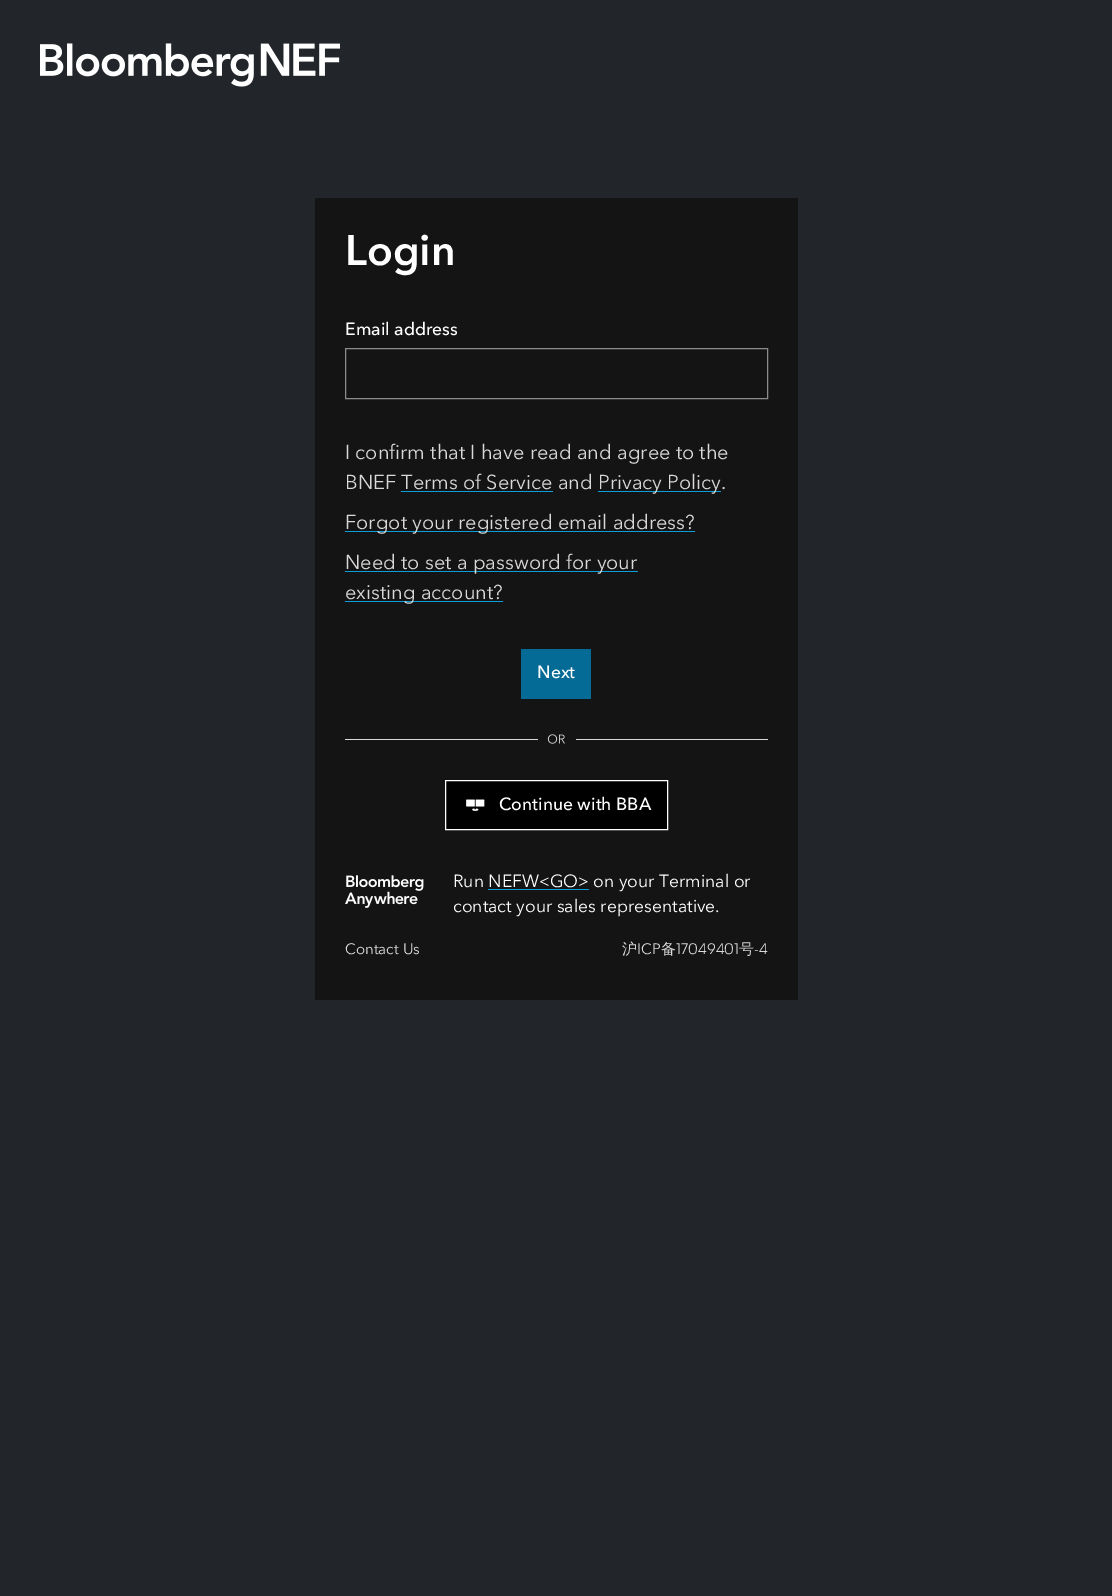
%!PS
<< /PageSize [1112 1596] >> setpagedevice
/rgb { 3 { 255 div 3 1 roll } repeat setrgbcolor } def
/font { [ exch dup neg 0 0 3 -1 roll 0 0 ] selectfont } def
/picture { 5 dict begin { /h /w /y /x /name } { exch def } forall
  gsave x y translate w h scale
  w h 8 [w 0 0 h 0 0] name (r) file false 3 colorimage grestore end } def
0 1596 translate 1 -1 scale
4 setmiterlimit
34 38 42 rgb
0 0 1112 1596 rectfill
(img/1.rgb) 40 43 300 44 picture
20 20 20 rgb
315 198 483 802 rectfill
140 140 140 rgb
345.5 348.5 422 50 rectstroke
[
  [598 491 123 1 13 157 219]
  [401 491 152 1 13 157 219]
  [345 531 350 1 13 157 219]
  [345 571 293 1 13 157 219]
  [345 601 158 1 13 157 219]
  [521 649 70 50 4 106 150]
  [345 739 423 1 217 217 217]
  [538 739 38 1 20 20 20]
] { aload pop rgb rectfill } forall
(img/2.rgb) 547 734 18 10 picture
0 0 0 rgb
445.5 780.5 moveto 667.5 780.5 lineto 667.5 829.5 lineto 445.5 829.5 lineto closepath gsave fill grestore
255 255 255 rgb
stroke
(img/3.rgb) 466 799 19 12 picture
(img/4.rgb) 345 875 79 33 picture
/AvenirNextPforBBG-SemiBold 42.5 font
345 265 moveto (Login) show
/AvenirNextPforBBG-Medium 17.5 font
345 335 moveto (Email address) show
/AvenirNextPforBBG-Regular 20 font
217 217 217 rgb
[
  [(I confirm that I have read and agree to the) 345 459]
  [(BNEF Terms of Service and) 345 489]
  [(Privacy Policy.) 598 489]
  [(Forgot your registered email address?) 345 529]
  [(Need to set a password for your) 345 569]
  [(existing account?) 345 599]
] { aload pop moveto show } forall
/AvenirNextPforBBG-Medium 17.5 font
255 255 255 rgb
537 678 moveto (Next) show
499 810 moveto (Continue with BBA) show
/AvenirNextPforBBG-Regular 17.5 font
453 887 moveto (Run NEFW<GO> on your Terminal or) show
13 157 219 rgb
488 889 101 1 rectfill
255 255 255 rgb
453 912 moveto (contact your sales representative.) show
/AvenirNextPforBBG-Regular 15 font
217 217 217 rgb
345 954 moveto (Contact Us) show
/WenQuanYiZenHei-Medium 15 font
622 954 moveto (沪) show
/AvenirNextPforBBG-Regular 15 font
637 954 moveto (ICP) show
/WenQuanYiZenHei-Medium 15 font
661 954 moveto (备) show
/AvenirNextPforBBG-Regular 15 font
676 954 moveto (17049401) show
/WenQuanYiZenHei-Medium 15 font
739 954 moveto (号) show
/AvenirNextPforBBG-Regular 15 font
754 954 moveto (-4) show
showpage
